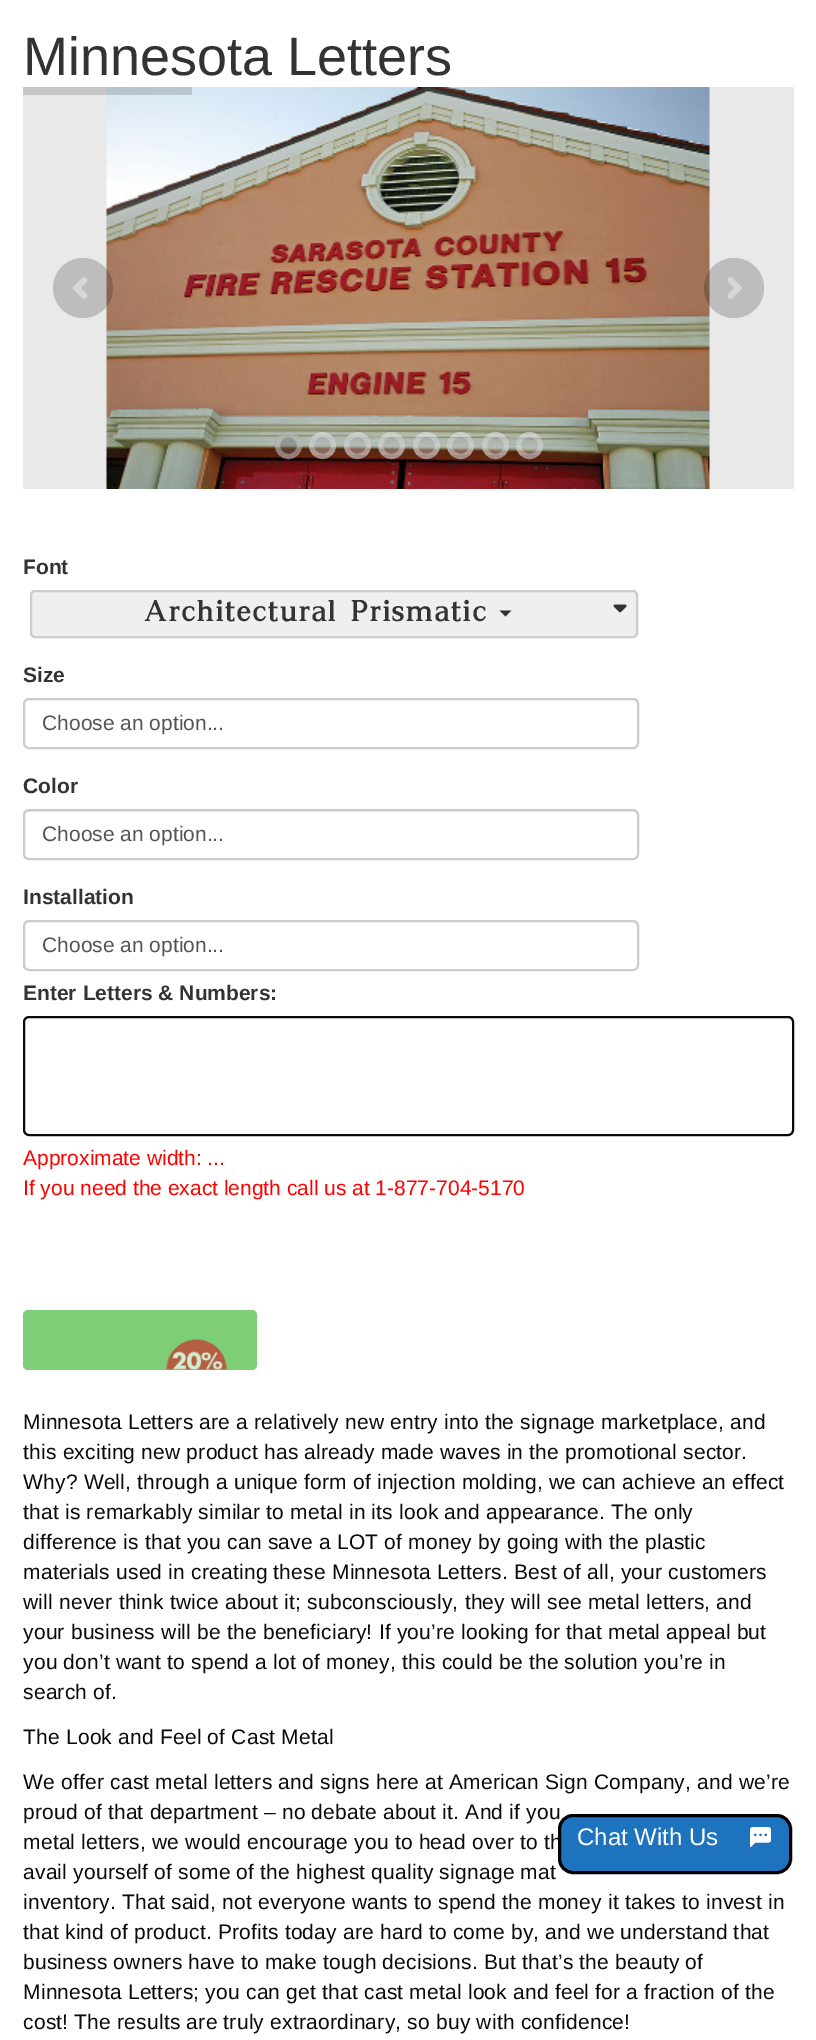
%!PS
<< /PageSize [816 2040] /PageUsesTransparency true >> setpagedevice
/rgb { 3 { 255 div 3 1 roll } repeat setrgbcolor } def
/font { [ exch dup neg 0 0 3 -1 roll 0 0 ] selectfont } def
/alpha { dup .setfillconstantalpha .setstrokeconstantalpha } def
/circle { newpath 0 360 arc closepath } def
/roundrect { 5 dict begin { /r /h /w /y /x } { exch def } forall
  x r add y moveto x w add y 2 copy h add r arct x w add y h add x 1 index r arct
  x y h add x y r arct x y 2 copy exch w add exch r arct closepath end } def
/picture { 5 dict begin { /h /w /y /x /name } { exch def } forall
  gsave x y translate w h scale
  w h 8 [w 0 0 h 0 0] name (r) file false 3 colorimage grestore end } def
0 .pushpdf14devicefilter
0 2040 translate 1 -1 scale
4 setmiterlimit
255 255 255 rgb
0 0 816 2040 rectfill
233 233 233 rgb
23 87 771 402 rectfill
(img/2.rgb) 106 87 604 402 picture
0.15 alpha
0 0 0 rgb
23 87 169 8 rectfill
0.19 alpha
83 288 30 circle fill
1 alpha
(img/1.rgb) 72 277 16 22 picture
0.19 alpha
734 288 30 circle fill
1 alpha
(img/3.rgb) 727 277 16 22 picture
0.39 alpha
102 102 102 rgb
288.5 445.5 13.5 circle fill
229 229 229 rgb
5 setlinewidth
288.5 445.5 11 circle stroke
322.5 445.5 11 circle stroke
357.5 445.5 11 circle stroke
391.5 445.5 11 circle stroke
426.5 445.5 11 circle stroke
460.5 445.5 11 circle stroke
495.5 445.5 11 circle stroke
529.5 445.5 11 circle stroke
1 alpha
239 239 239 rgb
31 591 606 46 4 roundrect gsave fill grestore
204 204 204 rgb
2 setlinewidth
stroke
51 51 51 rgb
499.5 610.5 moveto 511.5 610.5 lineto 505.5 616.5 lineto closepath fill
(img/4.rgb) 613 604 14 9 picture
236 236 236 rgb
28 700 moveto 633 700 lineto 635 700 638 703 638 705 curveto 638 704 lineto 638 701 636 699 633 699 curveto 29 699 lineto 26 699 24 701 24 704 curveto 24 705 lineto 24 703 26 700 28 700 curveto closepath fill
204 204 204 rgb
24 699 614 49 5 roundrect stroke
236 236 236 rgb
28 812 moveto 633 812 lineto 635 812 638 814 638 816 curveto 638 815 lineto 638 812 636 810 633 810 curveto 29 810 lineto 26 810 24 812 24 815 curveto 24 816 lineto 24 814 26 812 28 812 curveto closepath fill
204 204 204 rgb
24 810 614 49 5 roundrect stroke
236 236 236 rgb
28 922 moveto 633 922 lineto 635 922 638 925 638 927 curveto 638 926 lineto 638 923 636 921 633 921 curveto 29 921 lineto 26 921 24 923 24 926 curveto 24 927 lineto 24 925 26 922 28 922 curveto closepath fill
204 204 204 rgb
24 921 614 49 5 roundrect stroke
10 10 10 rgb
24 1017 769 118 5 roundrect stroke
126 206 119 rgb
23 1310 234 60 5 roundrect fill
(img/5.rgb) 166 1339 61 31 picture
/LiberationSans-Regular 54 font
51 51 51 rgb
23 75 moveto (Minnesota Letters) show
/LiberationSans-Bold 21 font
23 574 moveto (Font) show
/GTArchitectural-Regular 21 font
143 621 moveto (Architectural Prismatic) show
/LiberationSans-Bold 21 font
23 682 moveto (Size) show
/LiberationSans-Regular 21 font
85 85 85 rgb
42 730 moveto (Choose an option...) show
/LiberationSans-Bold 21 font
51 51 51 rgb
23 793 moveto (Color) show
/LiberationSans-Regular 21 font
85 85 85 rgb
42 841 moveto (Choose an option...) show
/LiberationSans-Bold 21 font
51 51 51 rgb
23 904 moveto (Installation) show
/LiberationSans-Regular 21 font
85 85 85 rgb
42 952 moveto (Choose an option...) show
/LiberationSans-Bold 21 font
51 51 51 rgb
23 1000 moveto (Enter Letters & Numbers:) show
/LiberationSans-Regular 21 font
255 0 0 rgb
23 1165 moveto (Approximate width: ...) show
23 1195 moveto (If you need the exact length call us at 1-877-704-5170) show
10 10 10 rgb
23 1429 moveto 0.2 0 (Minnesota Letters are a relatively new entry into the signage marketplace, and) ashow
23 1459 moveto 0.2 0 (this exciting new product has already made waves in the promotional sector.) ashow
23 1489 moveto 0.2 0 (Why? Well, through a unique form of injection molding, we can achieve an effect) ashow
23 1519 moveto 0.2 0 (that is remarkably similar to metal in its look and appearance. The only) ashow
23 1549 moveto 0.2 0 (difference is that you can save a LOT of money by going with the plastic) ashow
23 1579 moveto 0.2 0 (materials used in creating these Minnesota Letters. Best of all, your customers) ashow
23 1609 moveto 0.2 0 (will never think twice about it; subconsciously, they will see metal letters, and) ashow
23 1639 moveto 0.2 0 (your business will be the beneficiary! If you’re looking for that metal appeal but) ashow
23 1669 moveto 0.2 0 (you don’t want to spend a lot of money, this could be the solution you’re in) ashow
23 1699 moveto 0.2 0 (search of.) ashow
23 1744 moveto 0.2 0 (The Look and Feel of Cast Metal) ashow
23 1789 moveto 0.2 0 (We offer cast metal letters and signs here at American Sign Company, and we’re) ashow
23 1819 moveto 0.2 0 (proud of that department – no debate about it. And if you) ashow
23 1849 moveto 0.2 0 (metal letters, we would encourage you to head over to th) ashow
23 1879 moveto 0.2 0 (avail yourself of some of the highest quality signage mat) ashow
23 1909 moveto 0.2 0 (inventory. That said, not everyone wants to spend the money it takes to invest in) ashow
23 1939 moveto 0.2 0 (that kind of product. Profits today are hard to come by, and we understand that) ashow
23 1969 moveto 0.2 0 (business owners have to make tough decisions. But that’s the beauty of) ashow
23 1999 moveto 0.2 0 (Minnesota Letters; you can get that cast metal look and feel for a fraction of the) ashow
23 2029 moveto 0.2 0 (cost! The results are truly extraordinary, so buy with confidence!) ashow
30 115 190 rgb
559.5 1815.5 231 57 13.5 roundrect gsave fill grestore
0 0 0 rgb
3 setlinewidth
stroke
/LiberationSans-Regular 24 font
255 255 255 rgb
577 1845 moveto (Chat With Us) show
(img/6.rgb) 750 1827 21 20 picture
.poppdf14devicefilter showpage
